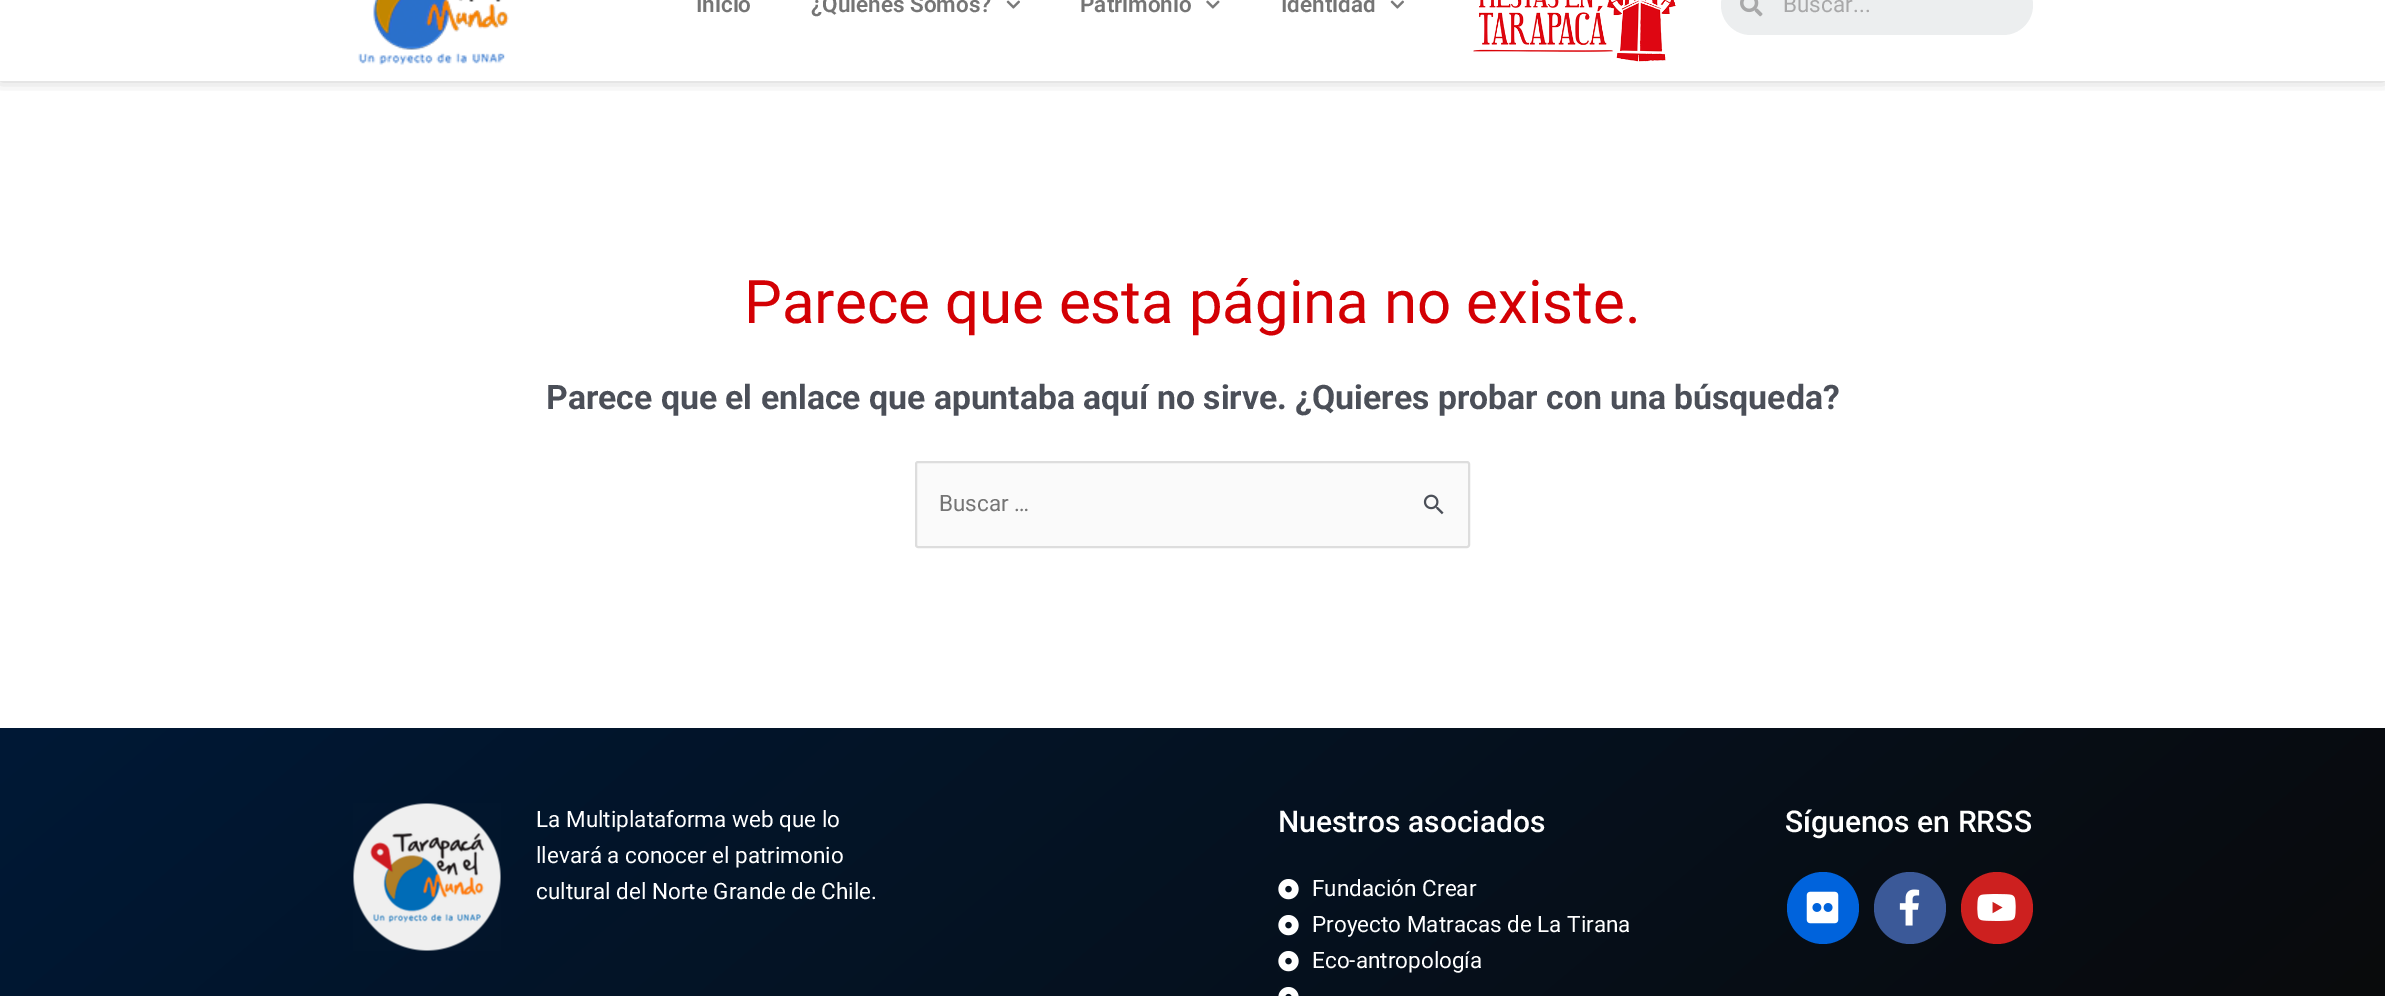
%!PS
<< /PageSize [2385 996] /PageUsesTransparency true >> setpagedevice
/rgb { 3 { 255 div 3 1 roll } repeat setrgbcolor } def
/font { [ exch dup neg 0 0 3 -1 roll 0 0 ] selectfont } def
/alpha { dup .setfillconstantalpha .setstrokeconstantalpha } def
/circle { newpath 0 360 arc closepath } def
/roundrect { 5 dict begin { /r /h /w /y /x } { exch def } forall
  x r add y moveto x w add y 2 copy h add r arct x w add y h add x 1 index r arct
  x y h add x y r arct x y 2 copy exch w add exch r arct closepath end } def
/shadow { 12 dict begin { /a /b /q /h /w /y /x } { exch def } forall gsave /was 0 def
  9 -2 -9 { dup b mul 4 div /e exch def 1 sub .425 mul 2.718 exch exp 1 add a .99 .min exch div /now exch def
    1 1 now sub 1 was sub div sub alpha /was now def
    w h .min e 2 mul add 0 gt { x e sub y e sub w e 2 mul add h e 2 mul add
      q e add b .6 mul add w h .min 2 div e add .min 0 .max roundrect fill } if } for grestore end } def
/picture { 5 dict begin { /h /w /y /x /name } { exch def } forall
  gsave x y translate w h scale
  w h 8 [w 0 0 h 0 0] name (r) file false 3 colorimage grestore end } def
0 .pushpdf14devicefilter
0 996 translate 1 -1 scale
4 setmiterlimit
255 255 255 rgb
0 0 2385 996 rectfill
gsave
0 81 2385 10 rectclip
0 0 0 rgb
0 -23 2385 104 0 7.5 0.2 shadow
grestore
(img/1.rgb) 358 0 151 65 picture
(img/2.rgb) 1006 0 14 9 picture
(img/3.rgb) 1206 0 14 9 picture
(img/2.rgb) 1390 0 14 9 picture
(img/4.rgb) 1473 0 203 62 picture
236 238 239 rgb
1721 -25 312 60 30 roundrect fill
(img/5.rgb) 1740 0 23 17 picture
250 250 250 rgb
916 462 553 85 2 roundrect gsave fill grestore
221 221 221 rgb
2 setlinewidth
stroke
(img/6.rgb) 1423 494 21 21 picture
gsave 0 728 moveto 2385 728 lineto 2385 996 lineto 0 996 lineto closepath clip newpath
<< /ShadingType 2 /ColorSpace /DeviceRGB /Coords [610 215 1775 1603] /Extend [true true] /Function << /FunctionType 2 /Domain [0 1] /C0 [0 0.098 0.212] /C1 [0.039 0.039 0.039] /N 1 >> >> shfill grestore
(img/7.rgb) 353 803 148 148 picture
(img/8.rgb) 1278 879 21 21 picture
(img/9.rgb) 1278 915 21 21 picture
(img/10.rgb) 1278 951 21 21 picture
(img/11.rgb) 1278 987 21 9 picture
0 99 220 rgb
1823 908 36 circle fill
(img/12.rgb) 1806 891 33 33 picture
59 89 152 rgb
1910 908 36 circle fill
(img/13.rgb) 1899 889 21 37 picture
205 32 31 rgb
1997 908 36 circle fill
(img/14.rgb) 1977 894 39 27 picture
/Roboto-SemiBold 22.5 font
117 117 117 rgb
[
  [(Inicio) 696 12]
  [(¿Quienes Somos?) 811 12]
  [(Patrimonio) 1080 12]
  [(Identidad) 1281 12]
] { aload pop moveto show } forall
/Roboto-Regular 22.5 font
168 168 169 rgb
1783 12 moveto (Buscar...) show
/Roboto-Regular 60 font
211 0 4 rgb
744 323 moveto (Parece que esta página no existe.) show
/Roboto-Bold 33.75 font
75 79 88 rgb
546 409 moveto (Parece que el enlace que apuntaba aquí no sirve. ¿Quieres probar con una búsqueda?) show
/Roboto-Regular 22.5 font
117 117 117 rgb
939 511 moveto (Buscar …) show
255 255 255 rgb
[
  [(La Multiplataforma web que lo) 536 827]
  [(llevará a conocer el patrimonio) 536 863]
  [(cultural del Norte Grande de Chile.) 536 899]
] { aload pop moveto show } forall
/Roboto-Medium 30 font
1278 832 moveto (Nuestros asociados) show
/Roboto-Regular 22.5 font
[
  [(Fundación Crear) 1312 896]
  [(Proyecto Matracas de La Tirana) 1312 932]
  [(Eco-antropología) 1312 968]
] { aload pop moveto show } forall
/Roboto-Medium 30 font
1785 832 moveto (Síguenos en RRSS) show
.poppdf14devicefilter showpage
